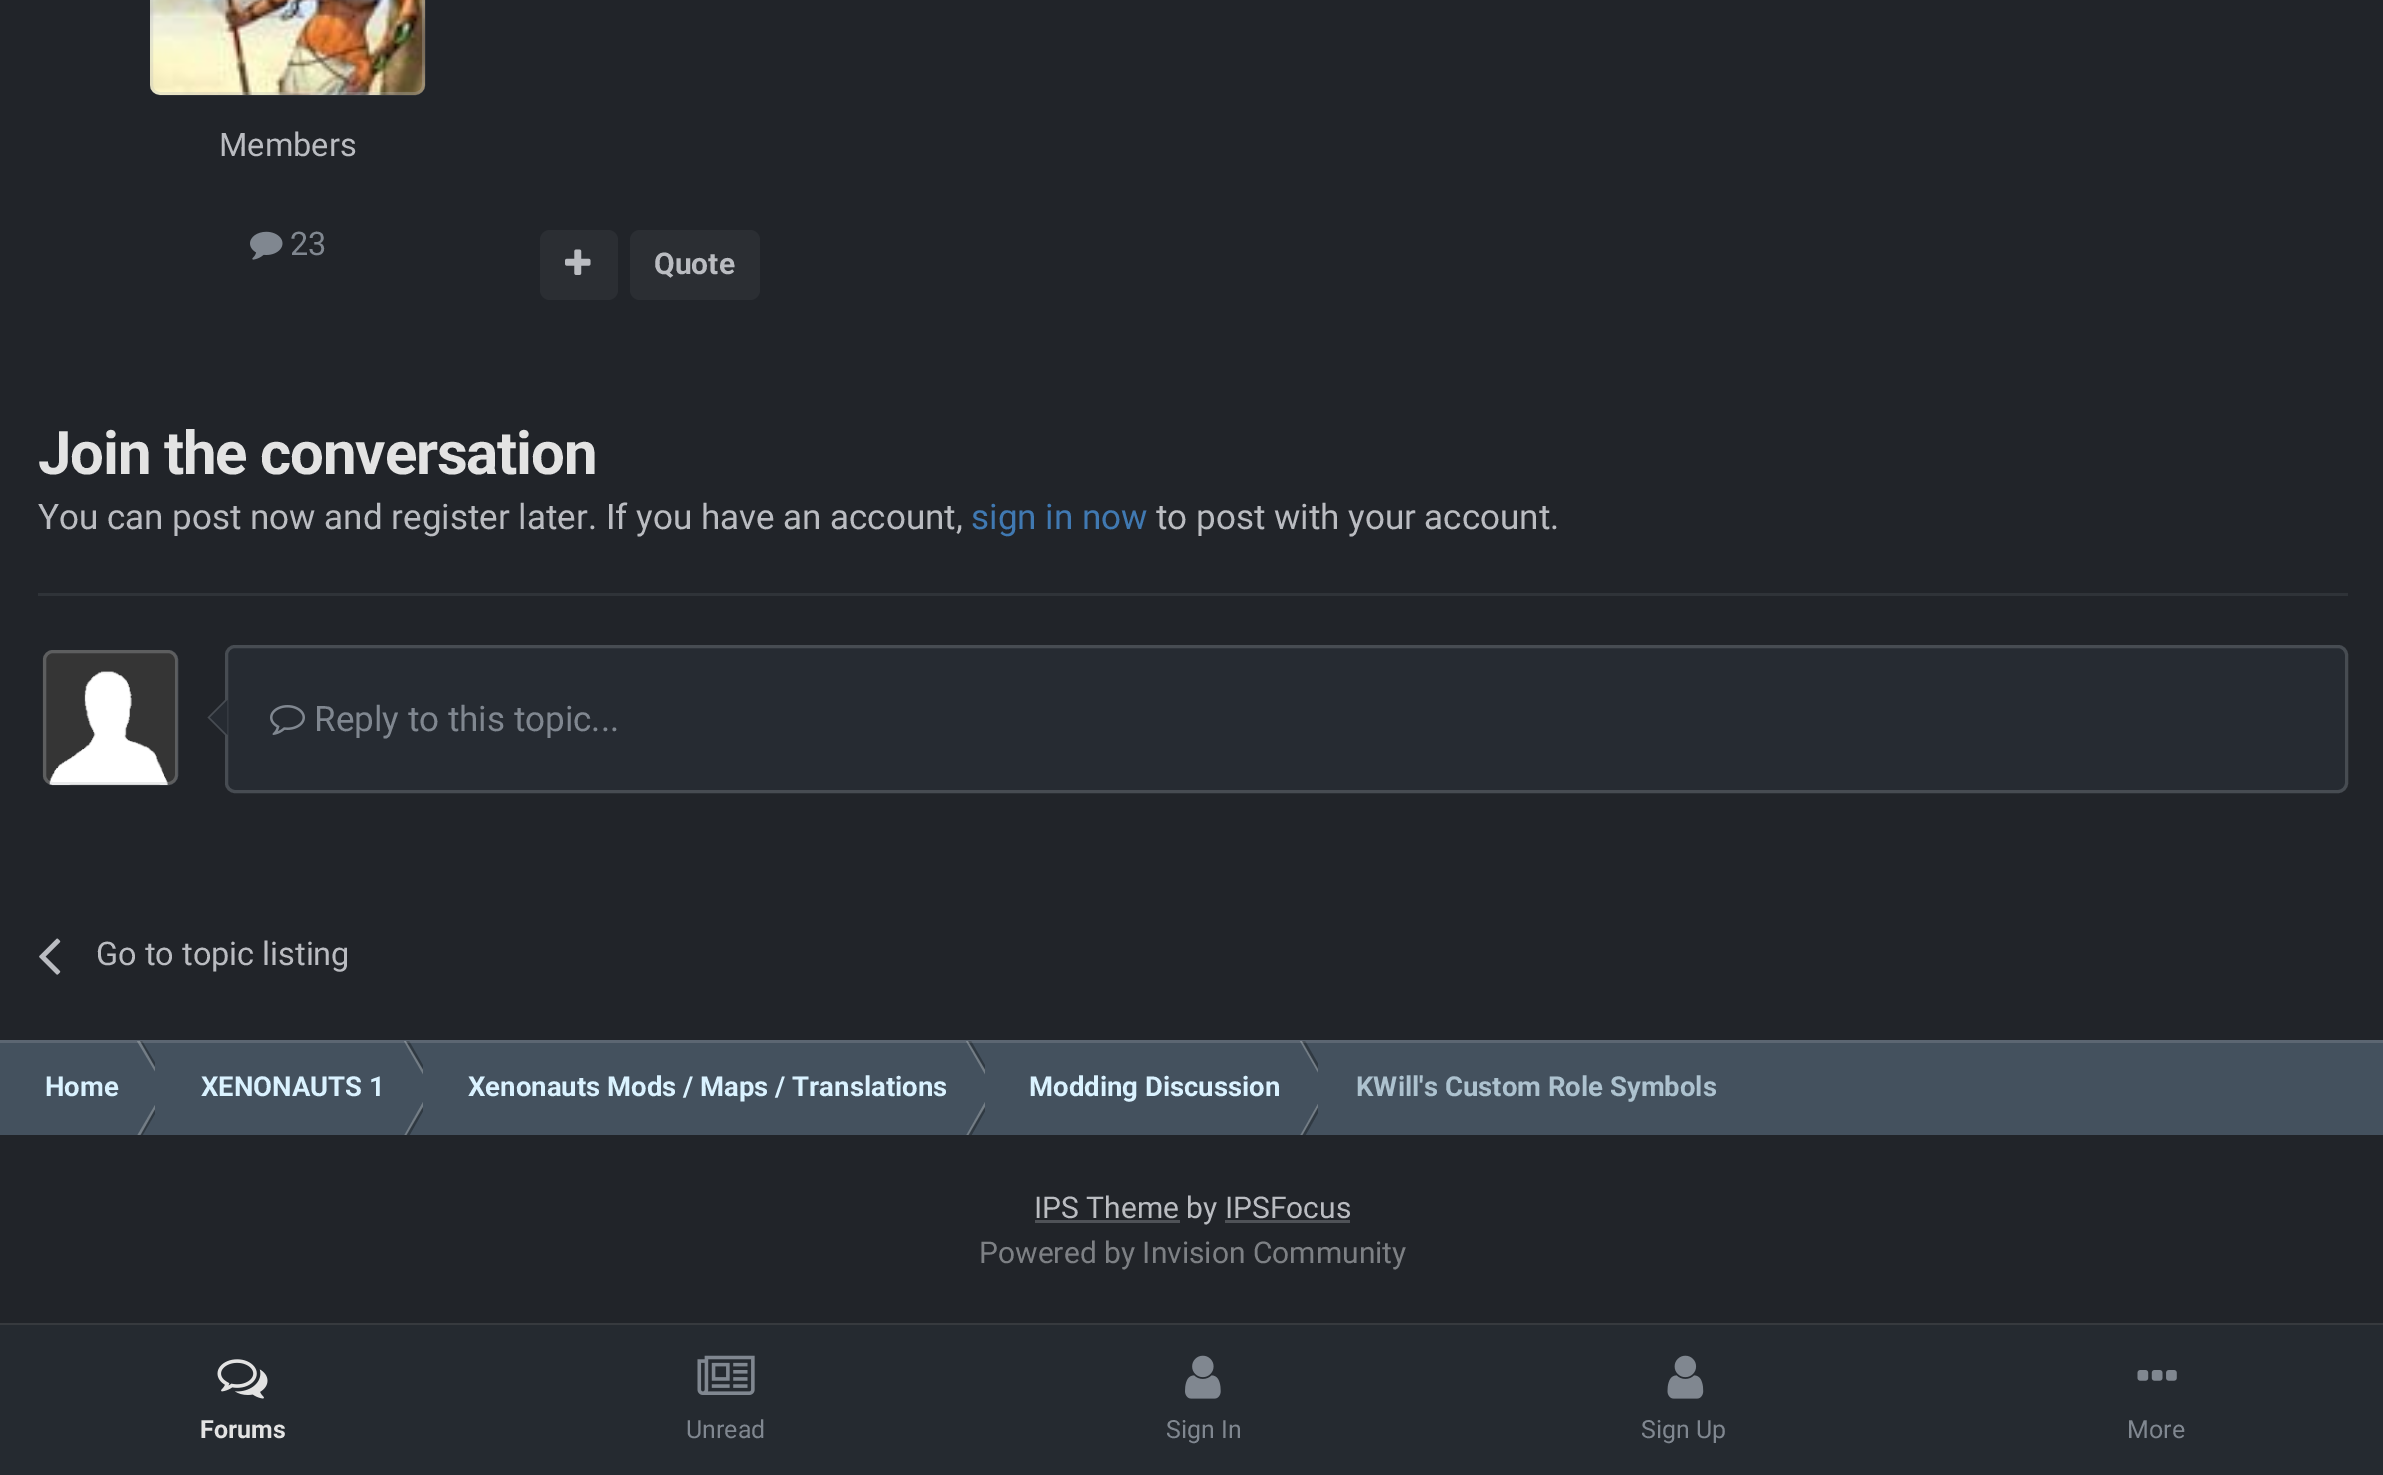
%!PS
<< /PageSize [2383 1475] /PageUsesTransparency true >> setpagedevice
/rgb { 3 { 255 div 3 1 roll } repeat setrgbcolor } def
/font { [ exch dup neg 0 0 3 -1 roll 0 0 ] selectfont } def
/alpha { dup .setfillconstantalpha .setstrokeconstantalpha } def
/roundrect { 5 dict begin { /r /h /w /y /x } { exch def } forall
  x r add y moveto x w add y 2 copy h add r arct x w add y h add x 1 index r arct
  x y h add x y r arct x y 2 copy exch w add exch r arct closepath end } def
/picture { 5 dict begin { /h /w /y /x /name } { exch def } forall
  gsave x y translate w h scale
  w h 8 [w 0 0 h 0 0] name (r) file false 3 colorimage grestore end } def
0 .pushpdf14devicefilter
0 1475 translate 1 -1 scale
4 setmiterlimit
33 36 41 rgb
0 0 2383 1475 rectfill
38 43 50 rgb
150 -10 275 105 10 roundrect fill
(img/1.rgb) 150 0 275 95 picture
0.3 alpha
186 188 193 rgb
3 setlinewidth
151.5 -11.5 272 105 8.5 roundrect stroke
1 alpha
(img/2.rgb) 250 231 33 29 picture
43 46 51 rgb
540 230 78 70 10 roundrect fill
(img/3.rgb) 565 249 26 26 picture
630 230 130 70 10 roundrect fill
47 51 56 rgb
38 593 2310 3 rectfill
38 43 50 rgb
43 650 135 135 10 roundrect fill
(img/4.rgb) 42 650 135 135 picture
0.3 alpha
186 188 193 rgb
44.5 651.5 132 132 8.5 roundrect stroke
1 alpha
38 43 50 rgb
226.5 646.5 2120 145 8.5 roundrect gsave fill grestore
71 76 82 rgb
stroke
225 700 moveto 225 735 lineto 207.5 717.5 lineto closepath fill
38 43 50 rgb
227.5 700 moveto 227.5 735 lineto 210 717.5 lineto closepath fill
(img/5.rgb) 270 705 35 30 picture
(img/6.rgb) 39 938 22 37 picture
68 81 94 rgb
0 1040 2383 95 rectfill
gsave
0 1040 155 95 rectclip
115 125 134 rgb
137 1041 moveto 140 1041 lineto 167 1088 lineto 165 1088 lineto closepath fill
0.3 alpha
0 0 0 rgb
140 1041 moveto 142 1041 lineto 170 1088 lineto 167 1088 lineto closepath fill
grestore
gsave
155 1040 268 95 rectclip
115 125 134 rgb
404 1041 moveto 406 1041 lineto 434 1088 lineto 431 1088 lineto closepath fill
0.3 alpha
0 0 0 rgb
406 1041 moveto 409 1041 lineto 436 1088 lineto 434 1088 lineto closepath fill
grestore
gsave
423 1040 562 95 rectclip
115 125 134 rgb
966 1041 moveto 968 1041 lineto 996 1088 lineto 993 1088 lineto closepath fill
0.3 alpha
0 0 0 rgb
968 1041 moveto 971 1041 lineto 998 1088 lineto 996 1088 lineto closepath fill
grestore
gsave
985 1040 333 95 rectclip
115 125 134 rgb
1300 1041 moveto 1302 1041 lineto 1329 1088 lineto 1327 1088 lineto closepath fill
0.3 alpha
0 0 0 rgb
1302 1041 moveto 1305 1041 lineto 1332 1088 lineto 1329 1088 lineto closepath fill
grestore
0.2 alpha
186 188 193 rgb
0 1040 2383 3 rectfill
gsave
0 1040 155 95 rectclip
1 alpha
115 125 134 rgb
137 1136 moveto 140 1136 lineto 167 1088 lineto 165 1088 lineto closepath fill
0.3 alpha
0 0 0 rgb
140 1136 moveto 142 1136 lineto 170 1088 lineto 167 1088 lineto closepath fill
grestore
gsave
155 1040 268 95 rectclip
1 alpha
115 125 134 rgb
404 1136 moveto 406 1136 lineto 434 1088 lineto 431 1088 lineto closepath fill
0.3 alpha
0 0 0 rgb
406 1136 moveto 409 1136 lineto 436 1088 lineto 434 1088 lineto closepath fill
grestore
gsave
423 1040 562 95 rectclip
1 alpha
115 125 134 rgb
966 1136 moveto 968 1136 lineto 996 1088 lineto 993 1088 lineto closepath fill
0.3 alpha
0 0 0 rgb
968 1136 moveto 971 1136 lineto 998 1088 lineto 996 1088 lineto closepath fill
grestore
gsave
985 1040 333 95 rectclip
1 alpha
115 125 134 rgb
1300 1136 moveto 1302 1136 lineto 1329 1088 lineto 1327 1088 lineto closepath fill
0.3 alpha
0 0 0 rgb
1302 1136 moveto 1305 1136 lineto 1332 1088 lineto 1329 1088 lineto closepath fill
grestore
1 alpha
[
  [1035 1220 145 3 79 82 87]
  [0 1323 2383 2 55 58 62]
  [0 1325 2383 150 37 42 48]
] { aload pop rgb rectfill } forall
(img/7.rgb) 217 1359 51 40 picture
(img/8.rgb) 697 1355 58 40 picture
(img/9.rgb) 1185 1355 36 44 picture
(img/10.rgb) 1667 1355 37 44 picture
(img/11.rgb) 2137 1370 40 11 picture
/Roboto-Regular 32.5 font
186 188 193 rgb
219 156 moveto (Members) show
128 135 144 rgb
290 255 moveto (23) show
/Roboto-Bold 30 font
186 188 193 rgb
654 274 moveto (Quote) show
/Roboto-Bold 60 font
227 227 227 rgb
38 474 moveto -1.2 0 (Join the conversation) ashow
/Roboto-Regular 35 font
186 188 193 rgb
38 529 moveto (You can post now and register later. If you have an account,) show
64 121 178 rgb
971 529 moveto (sign in now) show
186 188 193 rgb
1156 529 moveto (to post with your account.) show
128 135 144 rgb
314 731 moveto (Reply to this topic...) show
/Roboto-Regular 32.5 font
186 188 193 rgb
96 965 moveto (Go to topic listing) show
/Roboto-Bold 27.5 font
218 242 255 rgb
[
  [(Home) 45 1096]
  [(XENONAUTS 1) 201 1096]
  [(Xenonauts Mods / Maps / Translations) 468 1096]
  [(Modding Discussion) 1029 1096]
] { aload pop moveto show } forall
173 194 207 rgb
1356 1096 moveto (KWill's Custom Role Symbols) show
/Roboto-Regular 30 font
186 188 193 rgb
1034 1218 moveto (IPS Theme by IPSFocus) show
79 82 87 rgb
1225 1220 125 3 rectfill
125 128 132 rgb
979 1263 moveto (Powered by Invision Community) show
/Roboto-Bold 25 font
227 227 227 rgb
200 1438 moveto (Forums) show
/Roboto-Regular 25 font
128 135 144 rgb
[
  [(Unread) 686 1438]
  [(Sign In) 1166 1438]
  [(Sign Up) 1641 1438]
  [(More) 2127 1438]
] { aload pop moveto show } forall
.poppdf14devicefilter showpage
